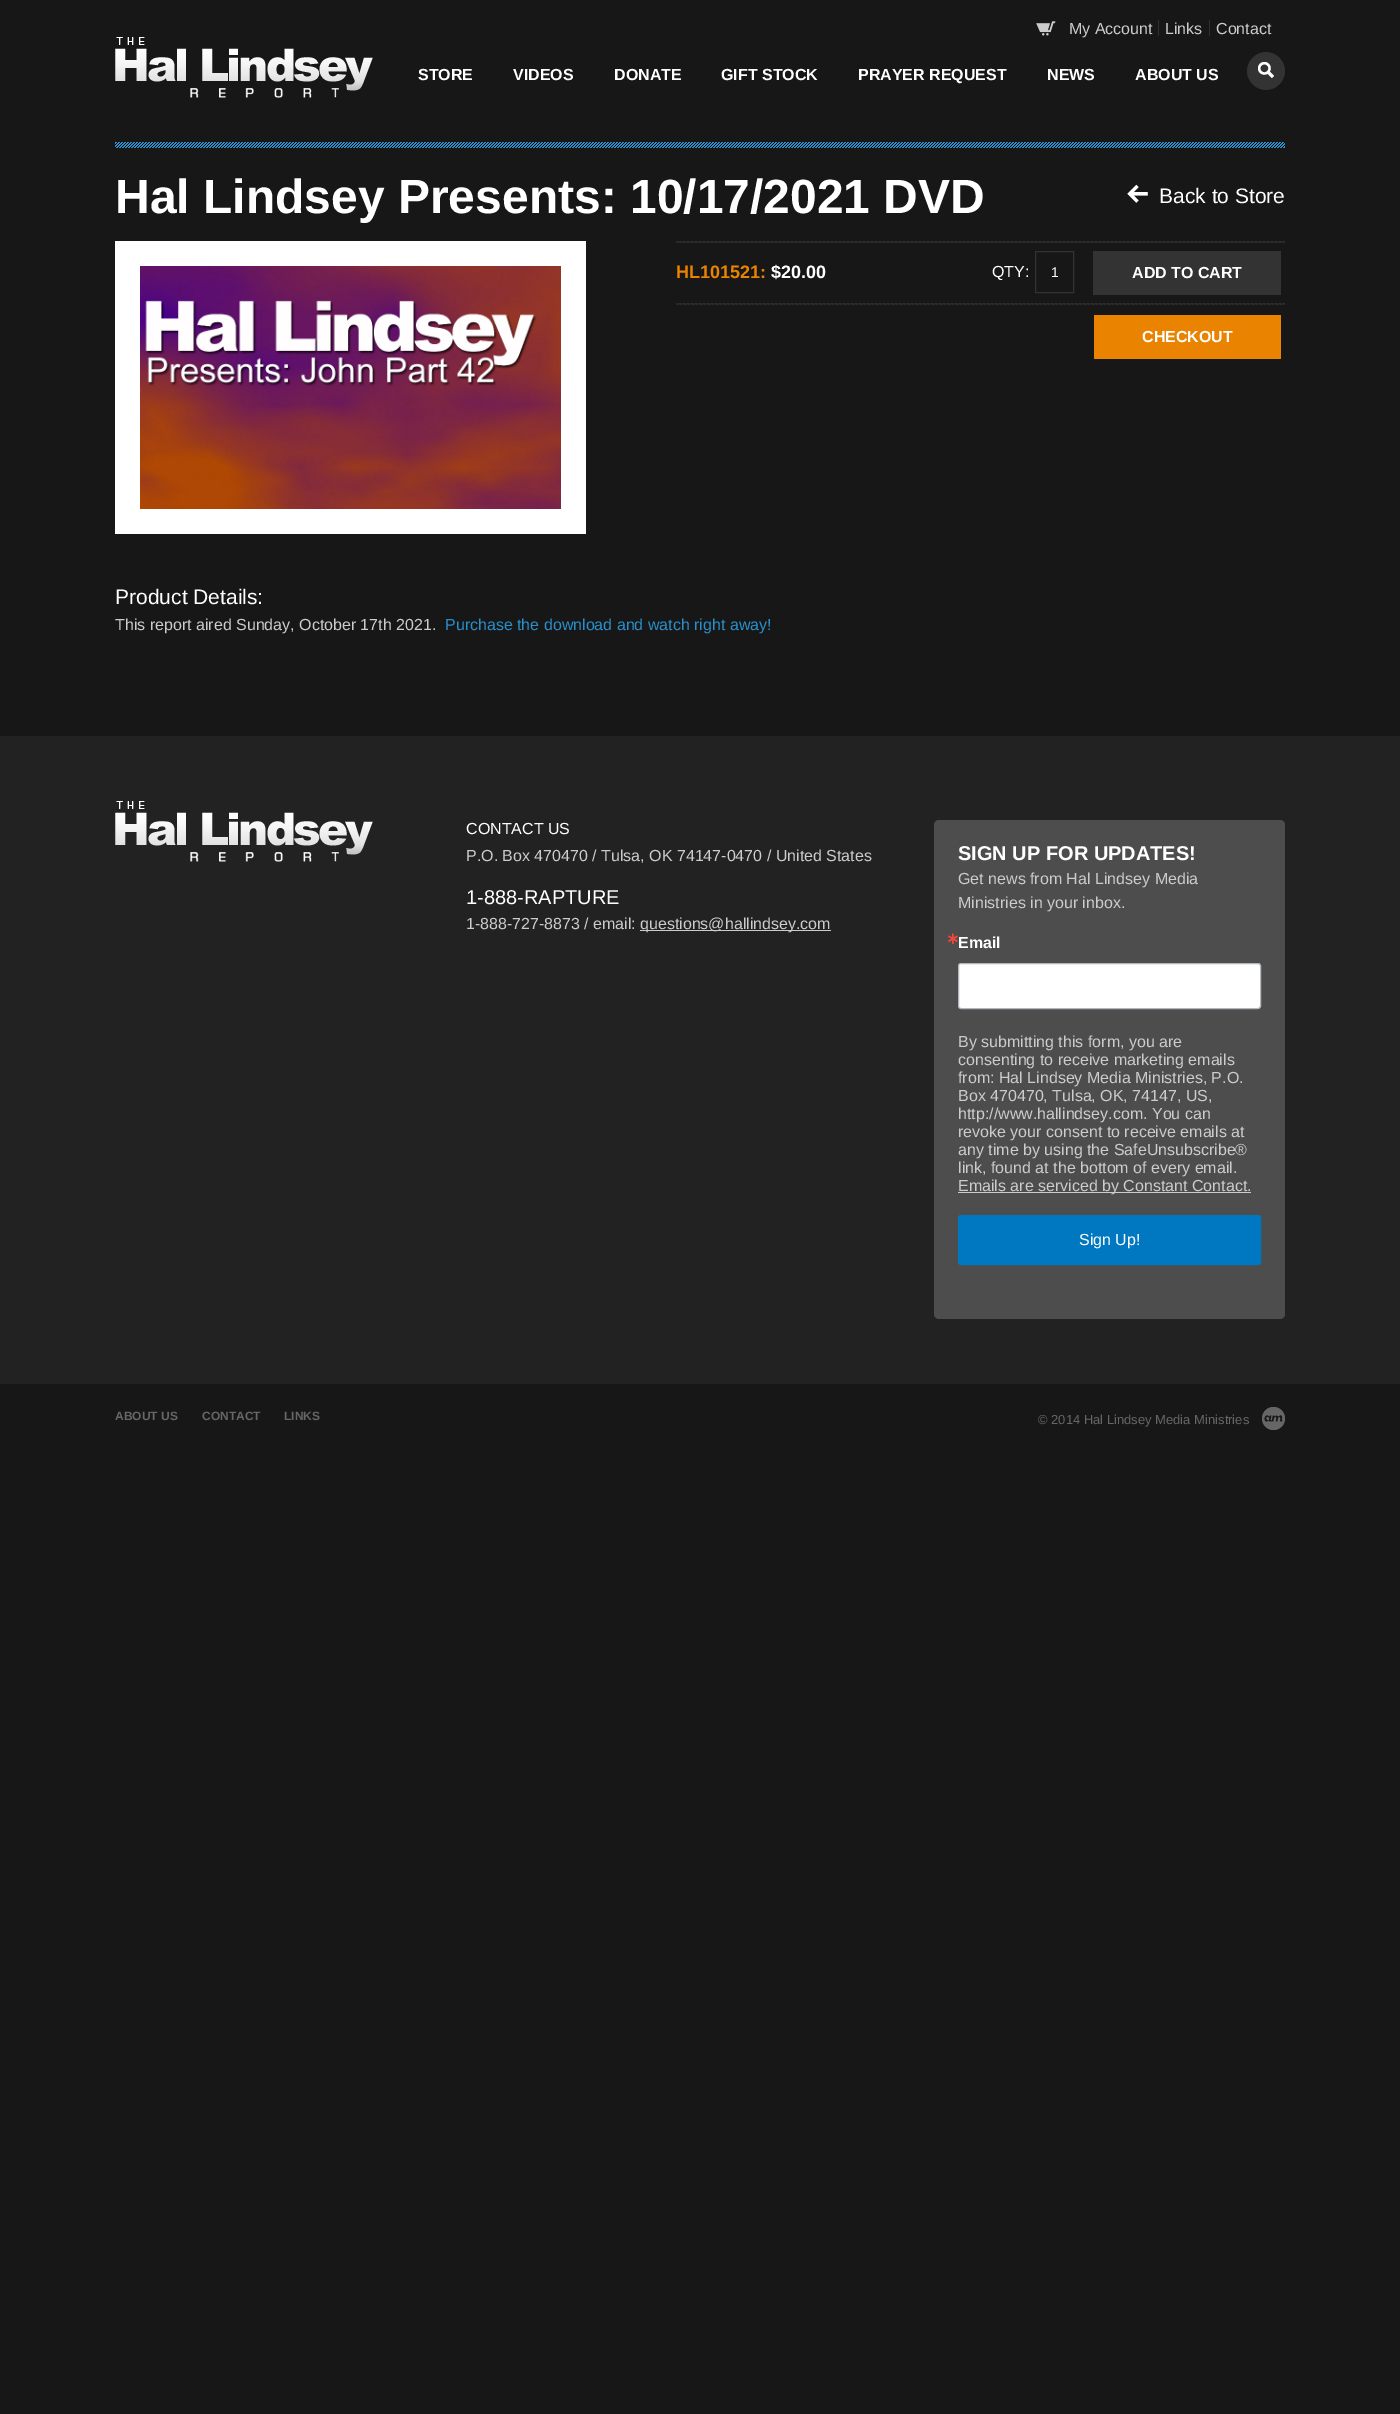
%!PS
<< /PageSize [1400 2414] >> setpagedevice
/rgb { 3 { 255 div 3 1 roll } repeat setrgbcolor } def
/font { [ exch dup neg 0 0 3 -1 roll 0 0 ] selectfont } def
/roundrect { 5 dict begin { /r /h /w /y /x } { exch def } forall
  x r add y moveto x w add y 2 copy h add r arct x w add y h add x 1 index r arct
  x y h add x y r arct x y 2 copy exch w add exch r arct closepath end } def
/picture { 5 dict begin { /h /w /y /x /name } { exch def } forall
  gsave x y translate w h scale
  w h 8 [w 0 0 h 0 0] name (r) file false 3 colorimage grestore end } def
0 2414 translate 1 -1 scale
4 setmiterlimit
23 23 23 rgb
0 0 1400 2414 rectfill
(img/1.rgb) 115 37 258 61 picture
(img/2.rgb) 1036 21 20 15 picture
47 47 47 rgb
1158 20 1 16 rectfill
1209 20 1 16 rectfill
(img/3.rgb) 1247 52 38 38 picture
(img/4.rgb) 115 142 1170 6 picture
(img/5.rgb) 1127 184 21 19 picture
255 255 255 rgb
115 241 471 293 rectfill
(img/6.rgb) 140 266 421 243 picture
(img/7.rgb) 676 241 609 64 picture
51 51 51 rgb
1035.5 251.5 38 41 rectstroke
[
  [1093 251 188 44 51 51 51]
  [1094 315 187 44 234 132 0]
  [0 736 1400 648 34 34 34]
] { aload pop rgb rectfill } forall
(img/8.rgb) 115 801 258 61 picture
204 204 204 rgb
640 930 191 1 rectfill
77 77 77 rgb
934 820 351 499 5 roundrect fill
255 255 255 rgb
958.5 963.5 302 45 2.5 roundrect gsave fill grestore
176 182 187 rgb
stroke
204 204 204 rgb
958 1192 293 1 rectfill
0 120 193 rgb
958.5 1215.5 302 49 2.5 roundrect gsave fill grestore
stroke
(img/9.rgb) 1262 1407 23 23 picture
/LiberationSans-Regular 16 font
204 204 204 rgb
[
  [(My Account) 1069 34]
  [(Links) 1165 34]
  [(Contact) 1216 34]
] { aload pop moveto show } forall
/LiberationSans-Bold 16 font
255 255 255 rgb
[
  [(STORE) 418 80]
  [(VIDEOS) 513 80]
  [(DONATE) 614 80]
  [(GIFT STOCK) 721 80]
  [(PRAYER REQUEST) 858 80]
  [(NEWS) 1047 80]
  [(ABOUT US) 1135 80]
] { aload pop moveto show } forall
/LiberationSans-Bold 48 font
115 213 moveto (Hal Lindsey Presents: 10/17/2021 DVD) show
/LiberationSans-Regular 21 font
1159 203 moveto (Back to Store) show
/LiberationSans-Bold 18 font
234 132 0 rgb
676 278 moveto (HL101521:) show
255 255 255 rgb
771 278 moveto ($20.00) show
/LiberationSans-Regular 16 font
992 277 moveto (QTY:) show
/LiberationSans-Regular 14 font
1051 277 moveto (1) show
/LiberationSans-Bold 16 font
1132 278 moveto (ADD TO CART) show
1142 342 moveto (CHECKOUT) show
/LiberationSans-Regular 21 font
115 604 moveto (Product Details:) show
/LiberationSans-Regular 16 font
204 204 204 rgb
115 630 moveto (This report aired Sunday, October 17th 2021.) show
42 143 202 rgb
445 630 moveto (Purchase the download and watch right away!) show
255 255 255 rgb
466 834 moveto (CONTACT US) show
204 204 204 rgb
466 861 moveto (P.O. Box 470470 / Tulsa, OK 74147-0470 / United States) show
/LiberationSans-Regular 20 font
255 255 255 rgb
466 904 moveto (1-888-RAPTURE) show
/LiberationSans-Regular 16 font
204 204 204 rgb
466 929 moveto (1-888-727-8873 / email:) show
640 929 moveto (questions@hallindsey.com) show
/LiberationSans-Bold 20 font
255 255 255 rgb
958 860 moveto (SIGN UP FOR UPDATES!) show
/LiberationSans-Regular 16 font
204 204 204 rgb
958 884 moveto (Get news from Hal Lindsey Media) show
958 908 moveto (Ministries in your inbox.) show
/DejaVuSans-Bold 16 font
245 70 59 rgb
946 944 moveto (∗) show
/LiberationSans-Bold 16 font
255 255 255 rgb
958 948 moveto (Email) show
/LiberationSans-Regular 16 font
204 204 204 rgb
[
  [(By submitting this form, you are) 958 1047]
  [(consenting to receive marketing emails) 958 1065]
  [(from: Hal Lindsey Media Ministries, P.O.) 958 1083]
  [(Box 470470, Tulsa, OK, 74147, US,) 958 1101]
  [(http://www.hallindsey.com. You can) 958 1119]
  [(revoke your consent to receive emails at) 958 1137]
  [(any time by using the SafeUnsubscribe®) 958 1155]
  [(link, found at the bottom of every email.) 958 1173]
  [(Emails are serviced by Constant Contact.) 958 1191]
] { aload pop moveto show } forall
255 255 255 rgb
1079 1245 moveto (Sign Up!) show
/LiberationSans-Bold 12 font
102 102 102 rgb
[
  [(ABOUT US) 115 1420]
  [(CONTACT) 202 1420]
  [(LINKS) 284 1420]
] { aload pop moveto show } forall
/LiberationSans-Regular 13 font
1038 1424 moveto (© 2014 Hal Lindsey Media Ministries) show
showpage
